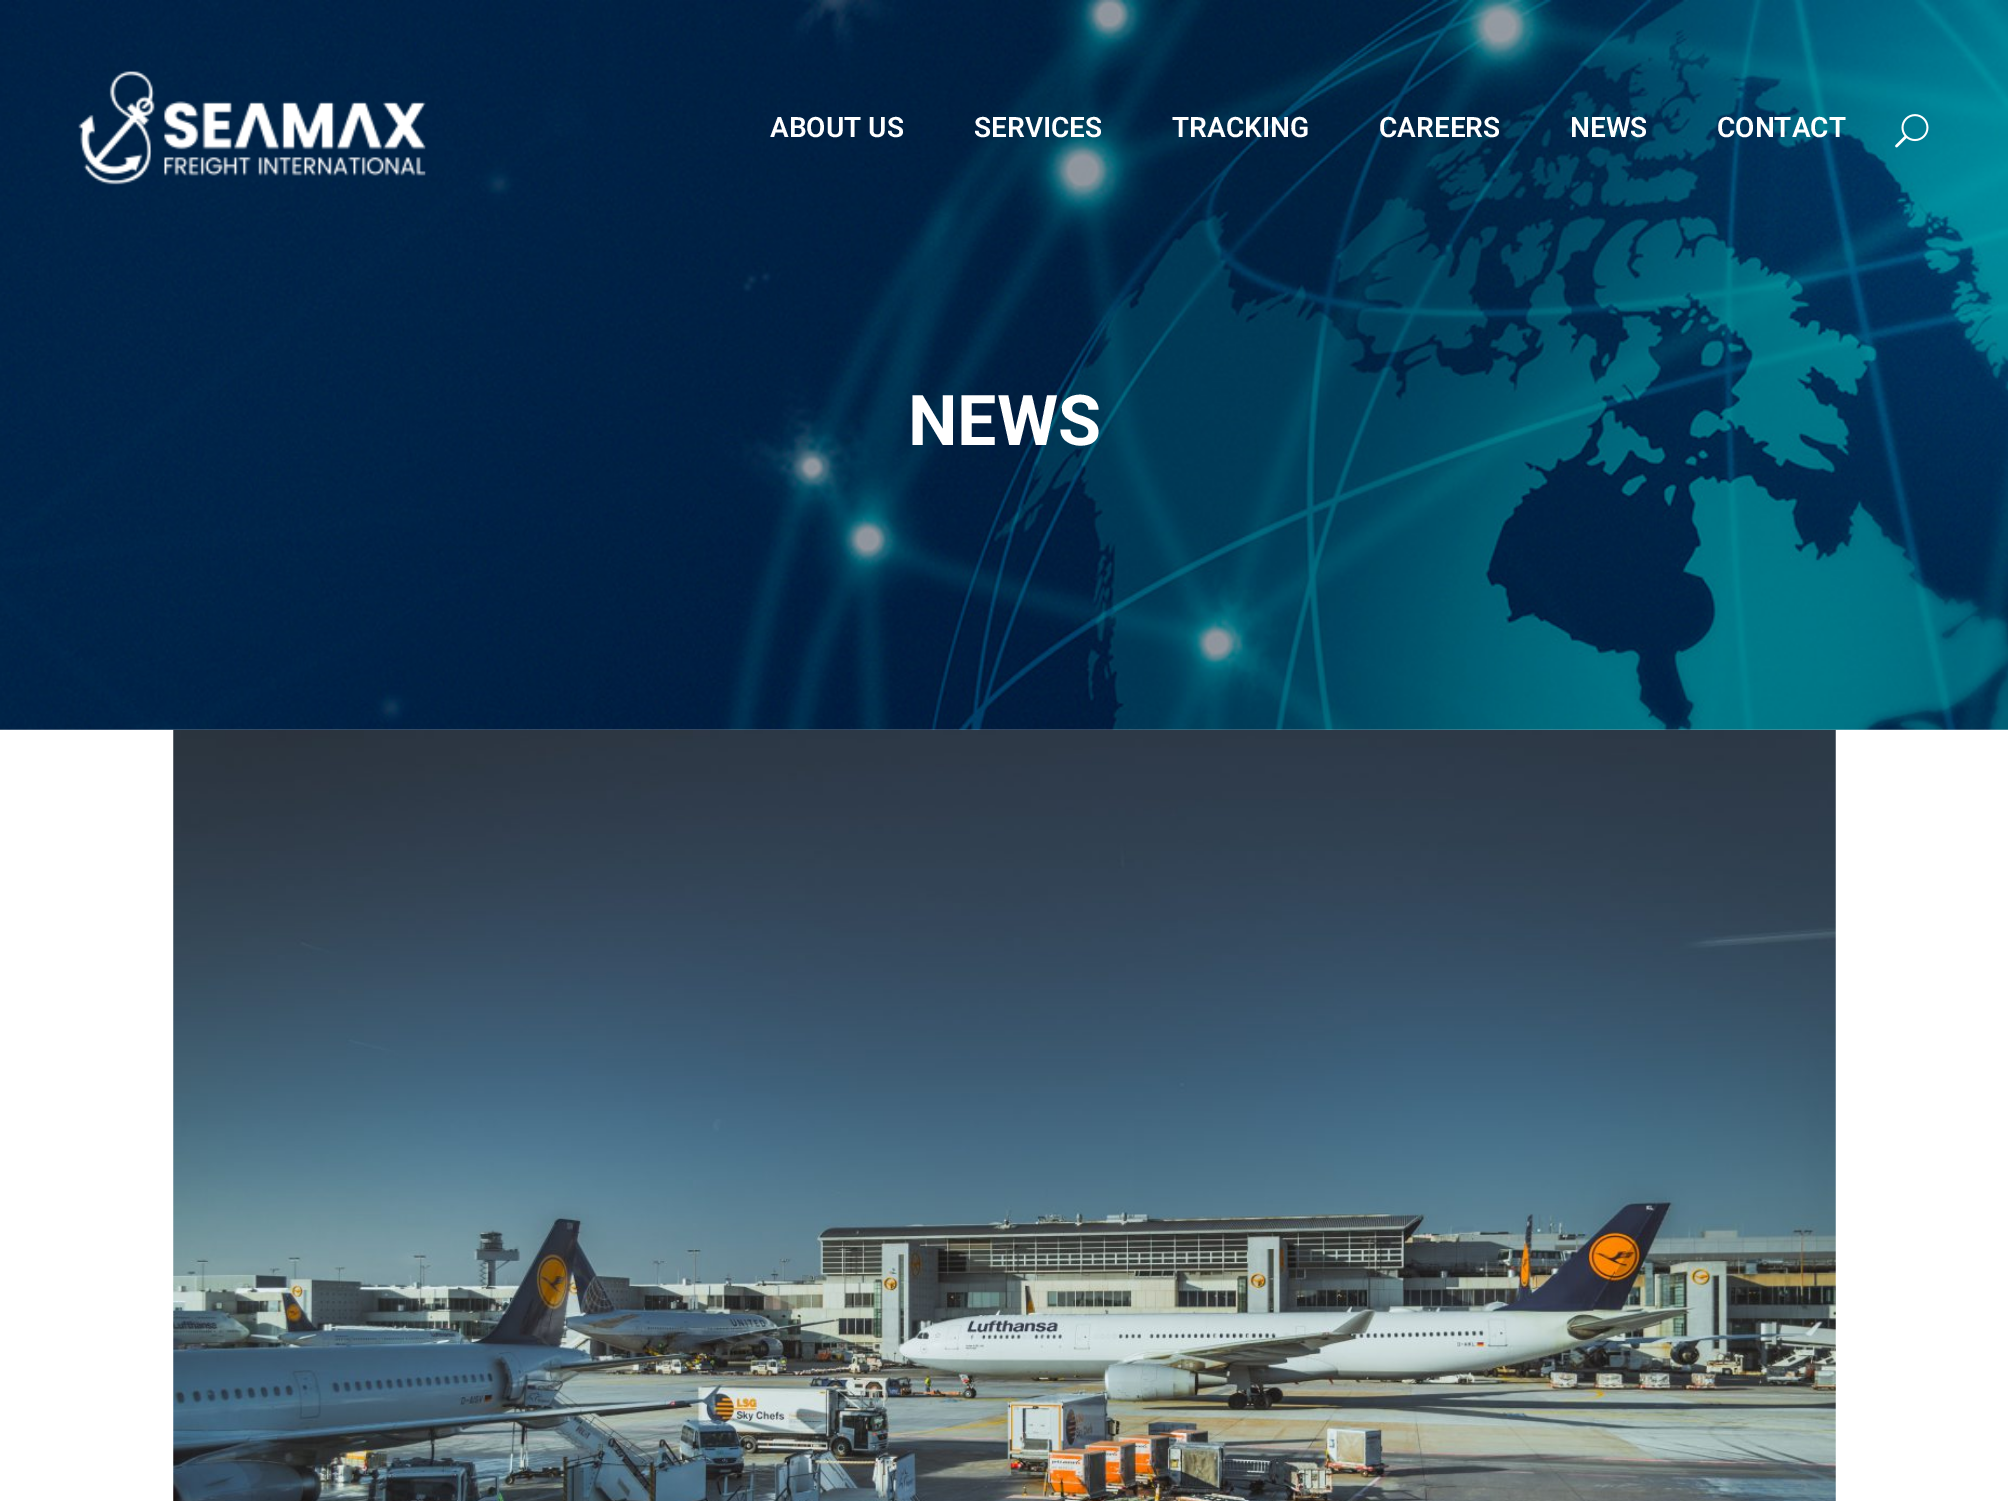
%!PS
<< /PageSize [2008 1501] >> setpagedevice
/rgb { 3 { 255 div 3 1 roll } repeat setrgbcolor } def
/font { [ exch dup neg 0 0 3 -1 roll 0 0 ] selectfont } def
/picture { 5 dict begin { /h /w /y /x /name } { exch def } forall
  gsave x y translate w h scale
  w h 8 [w 0 0 h 0 0] name (r) file false 3 colorimage grestore end } def
0 1501 translate 1 -1 scale
4 setmiterlimit
255 255 255 rgb
0 0 2008 1501 rectfill
(img/4.rgb) 173 729 1663 772 picture
(img/3.rgb) 0 0 2008 730 picture
(img/1.rgb) 78 71 348 114 picture
(img/2.rgb) 1895 114 34 34 picture
/Roboto-SemiBold 28 font
[
  [(ABOUT US) 770 137]
  [(SERVICES) 974 137]
  [(TRACKING) 1172 137]
  [(CAREERS) 1379 137]
  [(NEWS) 1570 137]
  [(CONTACT) 1717 137]
] { aload pop moveto show } forall
/Roboto-Bold 70 font
908 445 moveto (NEWS) show
showpage
